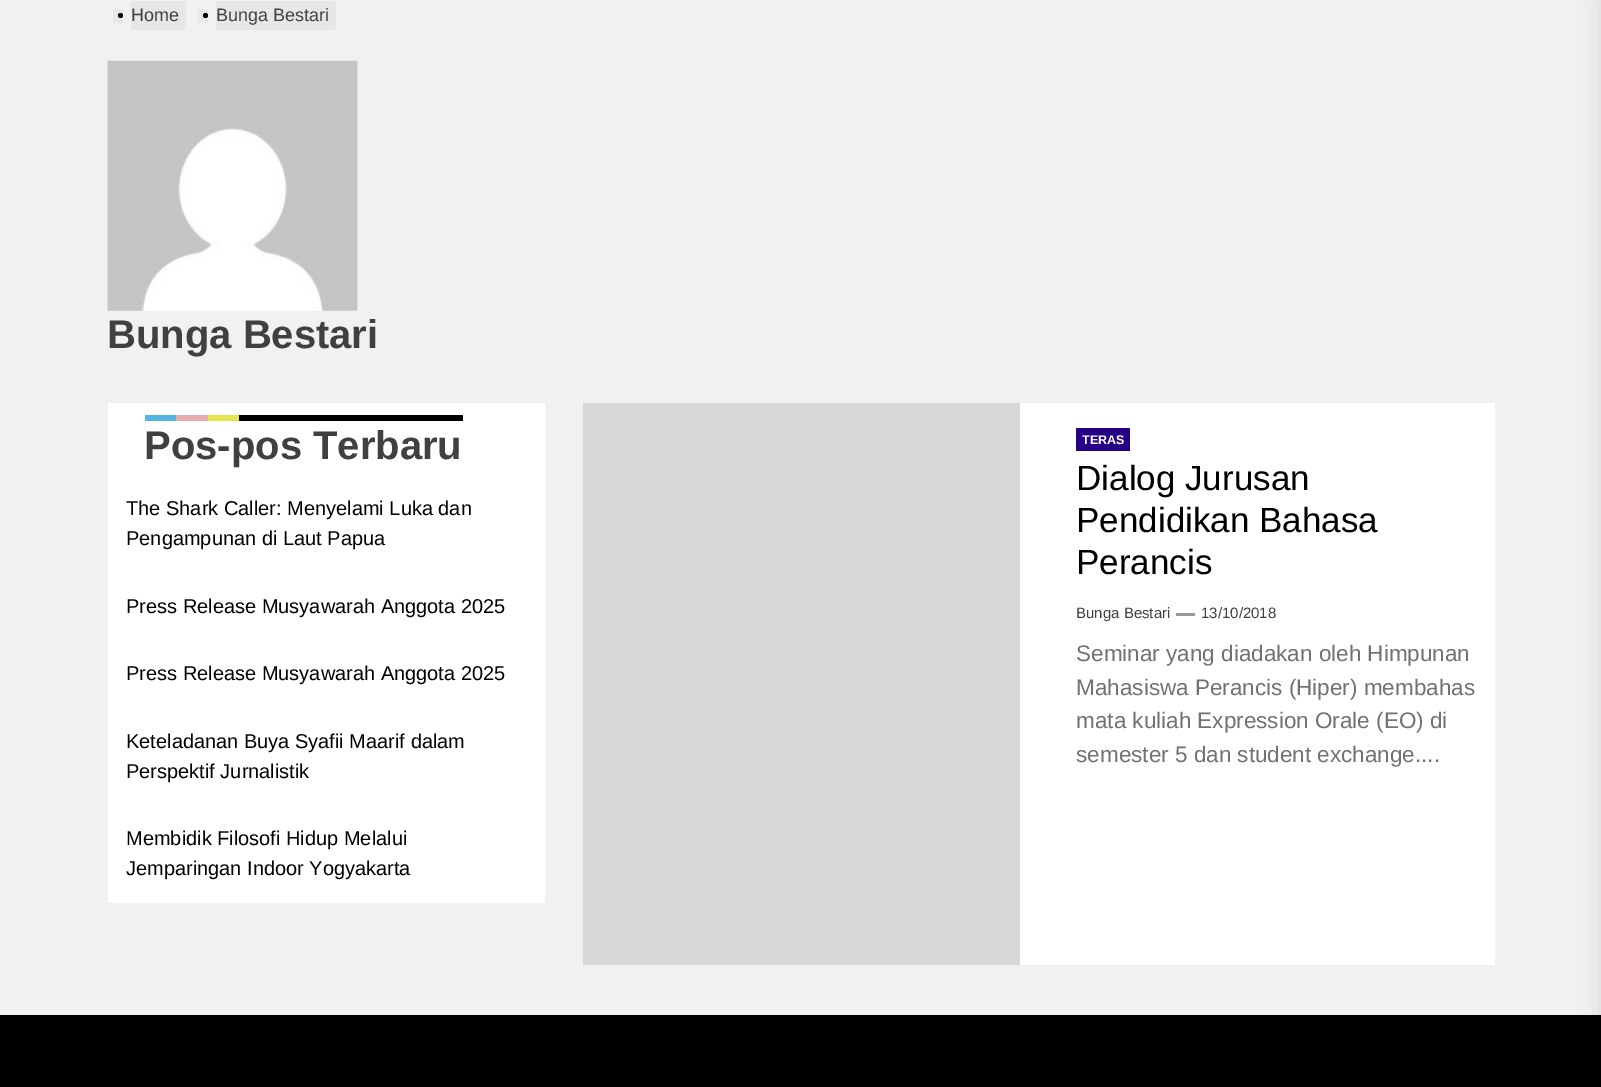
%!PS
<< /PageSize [1601 1087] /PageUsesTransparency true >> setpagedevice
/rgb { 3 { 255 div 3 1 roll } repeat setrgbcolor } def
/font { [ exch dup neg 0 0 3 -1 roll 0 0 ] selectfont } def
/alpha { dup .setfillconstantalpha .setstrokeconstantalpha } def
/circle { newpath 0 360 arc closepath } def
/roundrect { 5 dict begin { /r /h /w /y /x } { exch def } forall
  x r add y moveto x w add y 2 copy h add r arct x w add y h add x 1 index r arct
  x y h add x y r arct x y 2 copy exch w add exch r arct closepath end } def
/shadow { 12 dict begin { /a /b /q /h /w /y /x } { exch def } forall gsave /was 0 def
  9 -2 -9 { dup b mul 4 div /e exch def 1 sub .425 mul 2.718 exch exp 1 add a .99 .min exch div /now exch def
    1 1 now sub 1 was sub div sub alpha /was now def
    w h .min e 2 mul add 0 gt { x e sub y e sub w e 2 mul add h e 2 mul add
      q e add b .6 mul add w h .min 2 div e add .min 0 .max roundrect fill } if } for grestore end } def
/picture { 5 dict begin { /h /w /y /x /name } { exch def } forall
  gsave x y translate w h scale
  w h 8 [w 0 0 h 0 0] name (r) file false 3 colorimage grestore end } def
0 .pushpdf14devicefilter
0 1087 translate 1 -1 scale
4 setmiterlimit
241 241 241 rgb
0 0 1601 1087 rectfill
231 231 231 rgb
115.5 9 moveto 123 9 lineto 123 23 lineto 115.5 23 lineto 114 23 113 22 113 20.5 curveto 113 11.5 lineto 113 10 114 9 115.5 9 curveto closepath fill
131 1 moveto 183.5 1 lineto 185 1 186 2 186 3.5 curveto 186 27.5 lineto 186 29 185 30 183.5 30 curveto 131 30 lineto closepath fill
0 0 0 rgb
120.5 15.5 2.5 circle fill
231 231 231 rgb
200.5 9 moveto 208 9 lineto 208 23 lineto 200.5 23 lineto 199 23 198 22 198 20.5 curveto 198 11.5 lineto 198 10 199 9 200.5 9 curveto closepath fill
216 1 moveto 333.5 1 lineto 335 1 336 2 336 3.5 curveto 336 27.5 lineto 336 29 335 30 333.5 30 curveto 216 30 lineto closepath fill
0 0 0 rgb
205.5 15.5 2.5 circle fill
(img/1.rgb) 107 60 251 251 picture
[
  [108 403 437 500 255 255 255]
  [145 415 31 6 81 179 224]
  [176 415 32 6 229 173 174]
  [208 415 31 6 229 229 79]
  [239 415 224 6 0 0 0]
  [1020 403 475 562 255 255 255]
  [583 403 437 562 216 216 216]
  [1076 428 54 23 38 0 133]
  [1176 613 19 3 153 153 153]
  [0 1015 1601 72 0 0 0]
] { aload pop rgb rectfill } forall
1601 0 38 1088 0 12.5 0.1 shadow
/LiberationSans-Regular 18 font
64 64 64 rgb
131 21 moveto (Home) show
216 21 moveto (Bunga Bestari) show
/LiberationSans-Bold 40 font
107 348 moveto (Bunga Bestari) show
144 459 moveto (Pos-pos Terbaru) show
/LiberationSans-Regular 20 font
0 0 0 rgb
[
  [(The Shark Caller: Menyelami Luka dan) 126 515]
  [(Pengampunan di Laut Papua) 126 545]
  [(Press Release Musyawarah Anggota 2025) 126 613]
  [(Press Release Musyawarah Anggota 2025) 126 680]
  [(Keteladanan Buya Syafii Maarif dalam) 126 748]
  [(Perspektif Jurnalistik) 126 778]
  [(Membidik Filosofi Hidup Melalui) 126 845]
  [(Jemparingan Indoor Yogyakarta) 126 875]
] { aload pop moveto show } forall
/LiberationSans-Bold 12.5 font
255 255 255 rgb
1082 444 moveto (TERAS) show
/LiberationSans-Regular 35 font
0 0 0 rgb
[
  [(Dialog Jurusan) 1076 490]
  [(Pendidikan Bahasa) 1076 532]
  [(Perancis) 1076 574]
] { aload pop moveto show } forall
/LiberationSans-Regular 15 font
64 64 64 rgb
1076 618 moveto (Bunga Bestari) show
1201 618 moveto (13/10/2018) show
/LiberationSans-Regular 22.5 font
114 114 114 rgb
[
  [(Seminar yang diadakan oleh Himpunan) 1076 661]
  [(Mahasiswa Perancis \(Hiper\) membahas) 1076 695]
  [(mata kuliah Expression Orale \(EO\) di) 1076 728]
  [(semester 5 dan student exchange....) 1076 762]
] { aload pop moveto show } forall
.poppdf14devicefilter showpage
